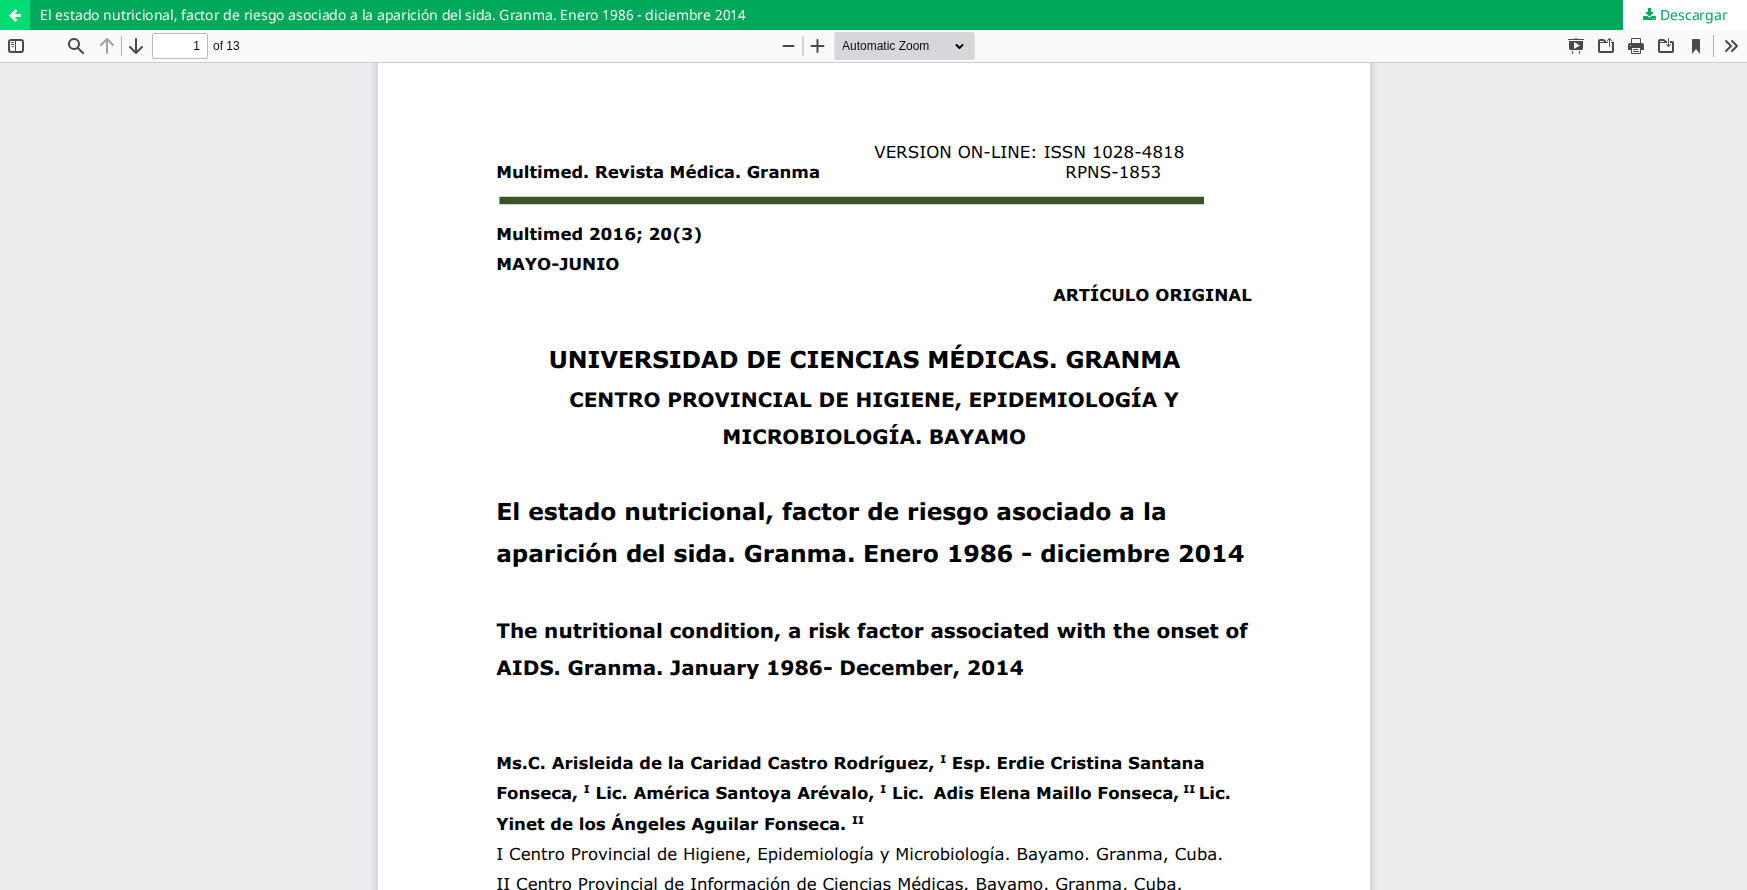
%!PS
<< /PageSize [1747 890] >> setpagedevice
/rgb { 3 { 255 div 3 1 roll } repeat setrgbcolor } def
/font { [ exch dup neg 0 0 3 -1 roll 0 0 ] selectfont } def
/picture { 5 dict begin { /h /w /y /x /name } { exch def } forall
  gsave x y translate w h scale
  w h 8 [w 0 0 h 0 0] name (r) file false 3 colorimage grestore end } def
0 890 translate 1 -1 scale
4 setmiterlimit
255 255 255 rgb
0 0 1747 890 rectfill
0 168 89 rgb
30 0 1593 30 rectfill
0 219 116 rgb
0 0 30 30 rectfill
(img/1.rgb) 9 9 12 13 picture
(img/2.rgb) 1643 8 13 12 picture
(img/3.rgb) 0 30 1747 860 picture
/NotoSans-Regular 14 font
255 255 255 rgb
40 20 moveto (El estado nutricional, factor de riesgo asociado a la aparición del sida. Granma. Enero 1986 - diciembre 2014) show
0 168 89 rgb
1660 20 moveto (Descargar) show
showpage
